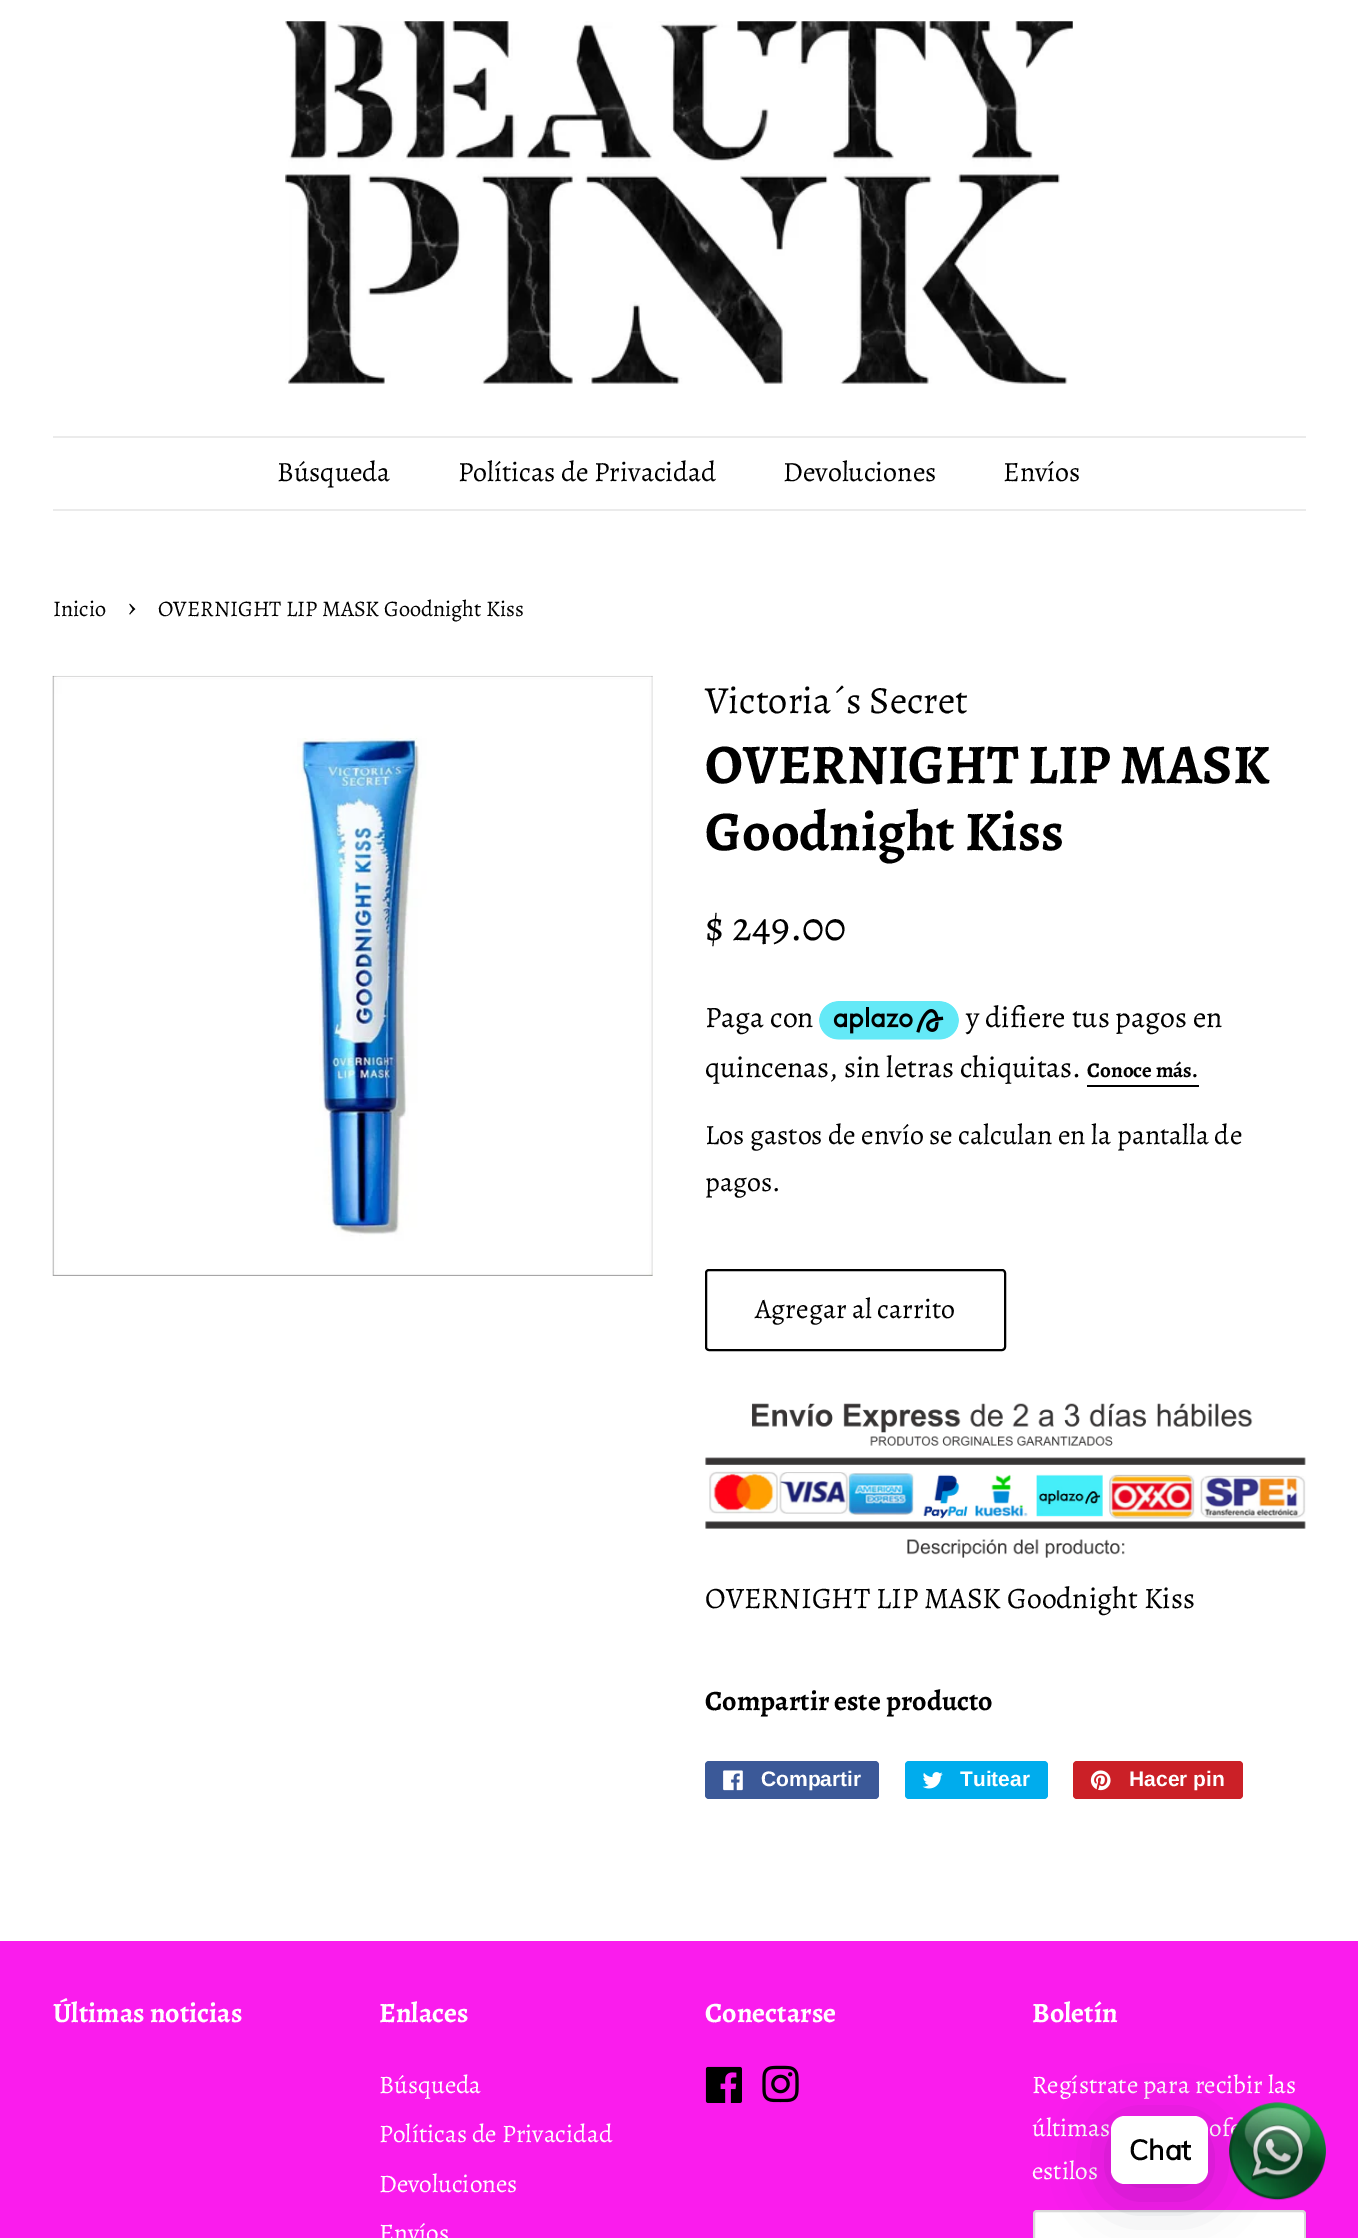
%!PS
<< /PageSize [1358 2238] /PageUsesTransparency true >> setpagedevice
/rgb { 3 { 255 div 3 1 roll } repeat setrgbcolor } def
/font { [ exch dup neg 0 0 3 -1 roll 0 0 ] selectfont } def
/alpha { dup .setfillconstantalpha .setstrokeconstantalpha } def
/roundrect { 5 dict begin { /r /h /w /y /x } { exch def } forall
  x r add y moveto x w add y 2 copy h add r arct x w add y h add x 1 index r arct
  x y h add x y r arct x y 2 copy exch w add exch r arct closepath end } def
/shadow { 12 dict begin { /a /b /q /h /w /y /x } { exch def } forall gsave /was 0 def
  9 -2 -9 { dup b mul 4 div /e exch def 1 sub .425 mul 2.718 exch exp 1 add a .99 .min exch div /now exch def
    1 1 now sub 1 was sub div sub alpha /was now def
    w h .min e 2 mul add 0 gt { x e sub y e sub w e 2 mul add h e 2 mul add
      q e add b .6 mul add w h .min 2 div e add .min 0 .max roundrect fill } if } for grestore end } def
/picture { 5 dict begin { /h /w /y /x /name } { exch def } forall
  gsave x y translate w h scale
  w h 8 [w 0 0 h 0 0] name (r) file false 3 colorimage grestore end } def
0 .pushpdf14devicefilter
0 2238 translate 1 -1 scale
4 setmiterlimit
255 255 255 rgb
0 0 1358 2238 rectfill
(img/1.rgb) 285 21 788 363 picture
235 235 235 rgb
53 436 1253 2 rectfill
53 509 1253 2 rectfill
(img/2.rgb) 52 675 601 601 picture
(img/3.rgb) 819 1001 140 39 picture
0 0 0 rgb
1087 1085 112 2 rectfill
2 setlinewidth
706 1270 299 80 3 roundrect stroke
(img/4.rgb) 705 1403 601 155 picture
59 89 152 rgb
705 1761 174 38 4 roundrect fill
(img/5.rgb) 723 1770 20 21 picture
0 172 237 rgb
905 1761 143 38 4 roundrect fill
(img/6.rgb) 922 1772 21 17 picture
203 32 39 rgb
1073 1761 170 38 4 roundrect fill
(img/7.rgb) 1090 1770 21 21 picture
250 28 237 rgb
0 1941 1358 297 rectfill
(img/8.rgb) 705 2066 37 37 picture
(img/9.rgb) 762 2065 37 38 picture
255 255 255 rgb
1033 2210 273 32 4 roundrect fill
0.15 alpha
0 0 0 rgb
1034 2211 271 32 3 roundrect stroke
/Alegreya-Regular 28 font
1 alpha
[
  [(Búsqueda) 277 481]
  [(Políticas de Privacidad) 458 481]
  [(Devoluciones) 783 481]
  [(Envíos) 1003 481]
] { aload pop moveto show } forall
/Alegreya-Regular 22.25 font
53 616 moveto (Inicio) show
/Alegreya-Regular 31 font
128 616 moveto (›) show
/Alegreya-Regular 22.25 font
158 616 moveto (OVERNIGHT LIP MASK Goodnight Kiss) show
/Alegreya-Regular 38.5 font
705 713 moveto (Victoria´s Secret) show
/Alegreya-Bold 56 font
705 783 moveto (OVERNIGHT LIP MASK) show
705 850 moveto (Goodnight Kiss) show
/Alegreya-Regular 41.5 font
705 940 moveto ($ 249.00) show
/Alegreya-Regular 29.75 font
[
  [(Paga con) 705 1027]
  [(y difiere tus pagos en) 966 1027]
  [(quincenas, sin letras chiquitas.) 705 1077]
] { aload pop moveto show } forall
/Alegreya-Bold 21 font
1087 1077 moveto (Conoce más.) show
/Alegreya-Regular 28 font
[
  [(Los gastos de envío se calculan en la pantalla de) 705 1144]
  [(pagos.) 705 1191]
  [(Agregar al carrito) 755 1318]
] { aload pop moveto show } forall
/Alegreya-Regular 29.75 font
705 1608 moveto (OVERNIGHT LIP MASK Goodnight Kiss) show
/Alegreya-Bold 28 font
705 1710 moveto (Compartir este producto) show
/LiberationSans-Bold 21 font
255 255 255 rgb
[
  [(Compartir) 761 1786]
  [(Tuitear) 960 1786]
  [(Hacer pin) 1129 1786]
] { aload pop moveto show } forall
/Alegreya-Bold 28 font
53 2022 moveto (Últimas noticias) show
379 2022 moveto (Enlaces) show
/Alegreya-Regular 25.25 font
[
  [(Búsqueda) 379 2093]
  [(Políticas de Privacidad) 379 2142]
  [(Devoluciones) 379 2192]
  [(Envíos) 379 2241]
] { aload pop moveto show } forall
/Alegreya-Bold 28 font
705 2022 moveto (Conectarse) show
1032 2022 moveto (Boletín) show
/Alegreya-Regular 25.25 font
[
  [(Regístrate para recibir las) 1032 2093]
  [(últimas) 1032 2136]
  [(of) 1209 2136]
  [(estilos) 1032 2179]
] { aload pop moveto show } forall
(img/10.rgb) 1229 2102 97 99 picture
0 18 46 rgb
1111 2126 97 69 14 28 0.24 shadow
255 255 255 rgb
1111 2116 97 68 14 roundrect fill
/Muli-Bold 28 font
0 0 0 rgb
1129 2160 moveto (Chat) show
.poppdf14devicefilter showpage
